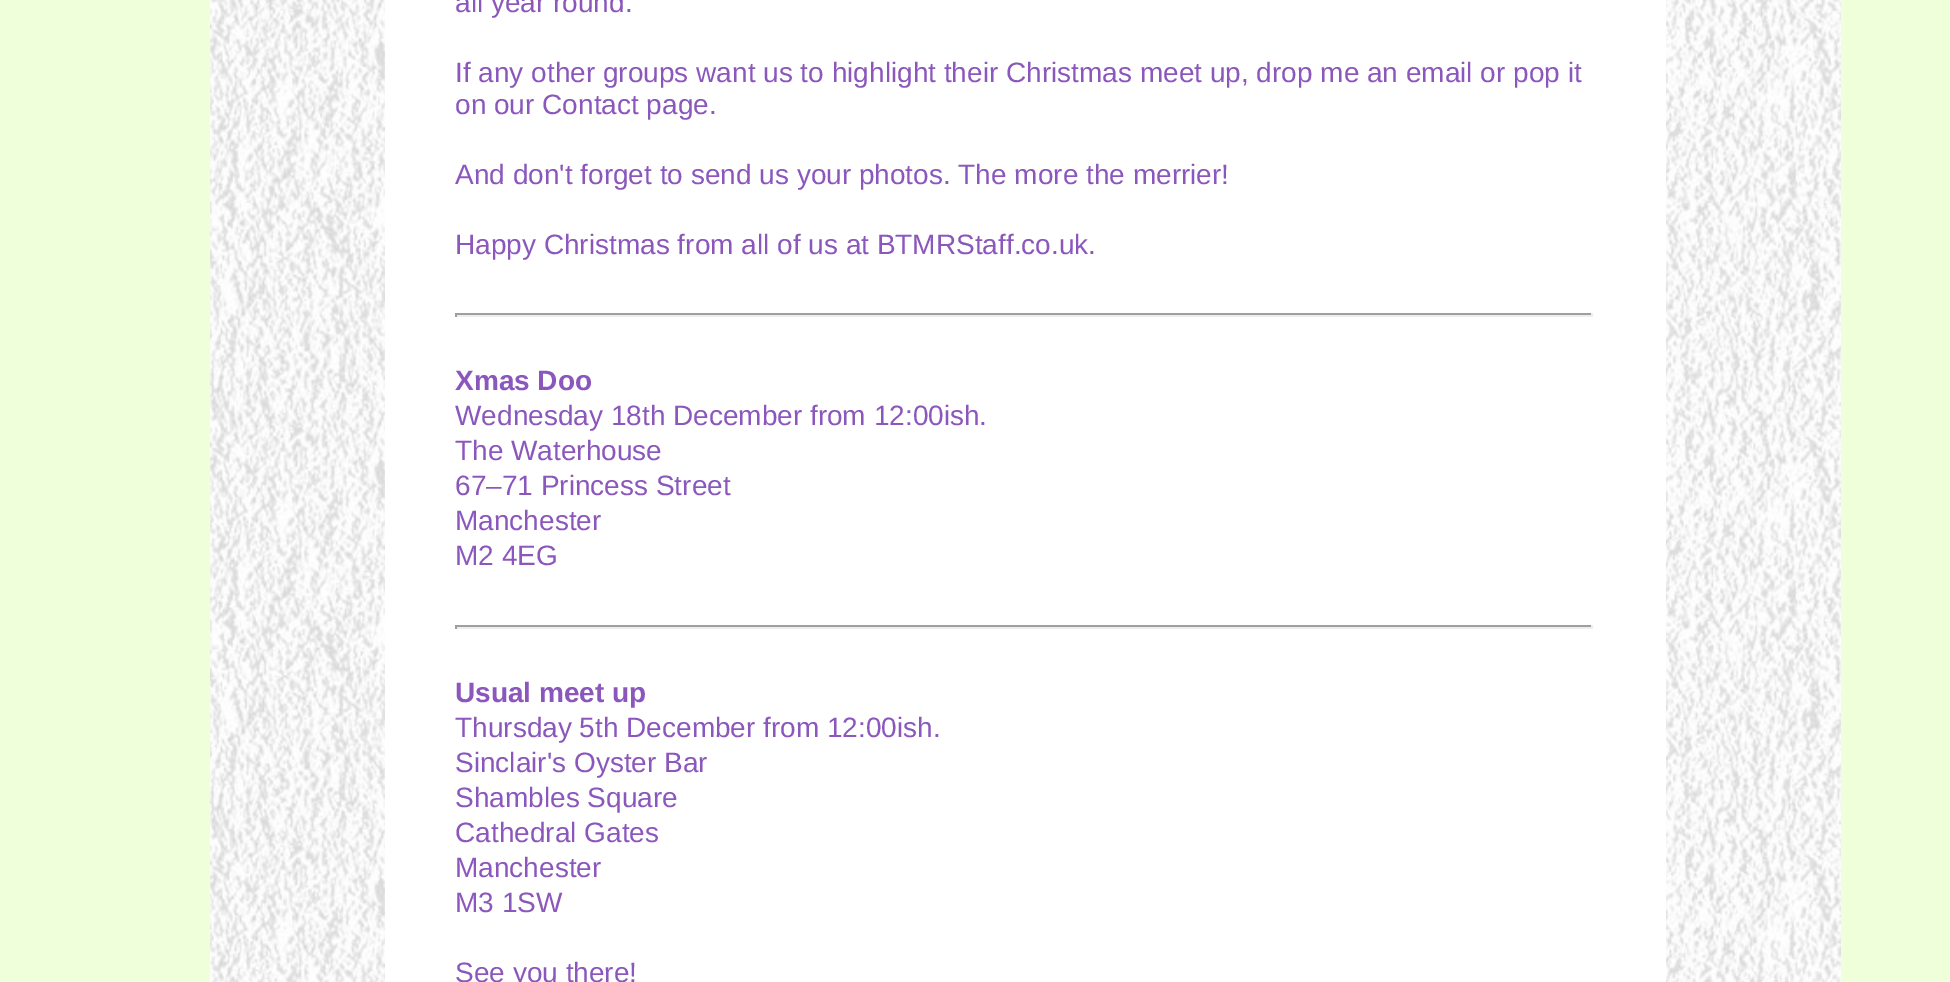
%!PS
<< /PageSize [1950 982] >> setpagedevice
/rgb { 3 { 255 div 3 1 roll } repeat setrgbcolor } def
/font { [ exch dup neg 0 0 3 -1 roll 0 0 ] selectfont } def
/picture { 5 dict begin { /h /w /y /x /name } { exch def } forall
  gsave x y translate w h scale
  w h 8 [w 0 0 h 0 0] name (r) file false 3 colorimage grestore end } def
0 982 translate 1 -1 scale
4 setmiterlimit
238 255 218 rgb
0 0 1950 982 rectfill
(img/1.rgb) 210 0 1631 982 picture
[
  [385 0 1281 982 255 255 255]
  [455 313 1138 2 159 159 159]
  [1591 313 2 4 238 238 238]
  [455 315 1138 2 238 238 238]
  [455 313 2 4 159 159 159]
  [455 625 1138 2 159 159 159]
  [1591 625 2 4 238 238 238]
  [455 627 1138 2 238 238 238]
  [455 625 2 4 159 159 159]
] { aload pop rgb rectfill } forall
/LiberationSans-Regular 28 font
139 87 189 rgb
[
  [(all year round.) 455 12]
  [(If any other groups want us to highlight their Christmas meet up, drop me an email or pop it) 455 82]
  [(on our Contact page.) 455 114]
  [(And don't forget to send us your photos. The more the merrier!) 455 184]
  [(Happy Christmas from all of us at BTMRStaff.co.uk.) 455 254]
] { aload pop moveto show } forall
/LiberationSans-Bold 28 font
455 390 moveto (Xmas Doo) show
/LiberationSans-Regular 28 font
[
  [(Wednesday 18th December from 12:00ish.) 455 425]
  [(The Waterhouse) 455 460]
  [(67–71 Princess Street) 455 495]
  [(Manchester) 455 530]
  [(M2 4EG) 455 565]
] { aload pop moveto show } forall
/LiberationSans-Bold 28 font
455 702 moveto (Usual meet up) show
/LiberationSans-Regular 28 font
[
  [(Thursday 5th December from 12:00ish.) 455 737]
  [(Sinclair's Oyster Bar) 455 772]
  [(Shambles Square) 455 807]
  [(Cathedral Gates) 455 842]
  [(Manchester) 455 877]
  [(M3 1SW) 455 912]
  [(See you there!) 455 982]
] { aload pop moveto show } forall
showpage
